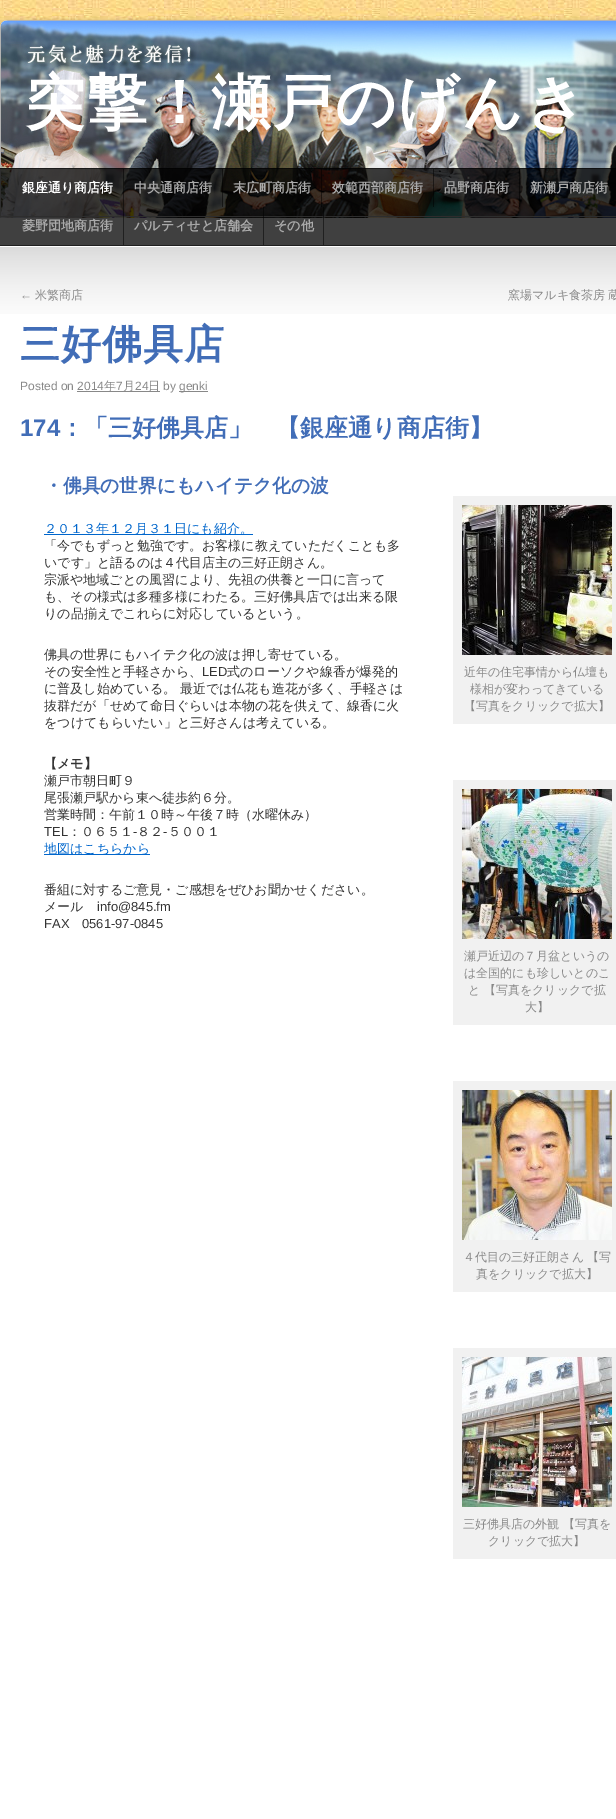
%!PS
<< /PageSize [616 1819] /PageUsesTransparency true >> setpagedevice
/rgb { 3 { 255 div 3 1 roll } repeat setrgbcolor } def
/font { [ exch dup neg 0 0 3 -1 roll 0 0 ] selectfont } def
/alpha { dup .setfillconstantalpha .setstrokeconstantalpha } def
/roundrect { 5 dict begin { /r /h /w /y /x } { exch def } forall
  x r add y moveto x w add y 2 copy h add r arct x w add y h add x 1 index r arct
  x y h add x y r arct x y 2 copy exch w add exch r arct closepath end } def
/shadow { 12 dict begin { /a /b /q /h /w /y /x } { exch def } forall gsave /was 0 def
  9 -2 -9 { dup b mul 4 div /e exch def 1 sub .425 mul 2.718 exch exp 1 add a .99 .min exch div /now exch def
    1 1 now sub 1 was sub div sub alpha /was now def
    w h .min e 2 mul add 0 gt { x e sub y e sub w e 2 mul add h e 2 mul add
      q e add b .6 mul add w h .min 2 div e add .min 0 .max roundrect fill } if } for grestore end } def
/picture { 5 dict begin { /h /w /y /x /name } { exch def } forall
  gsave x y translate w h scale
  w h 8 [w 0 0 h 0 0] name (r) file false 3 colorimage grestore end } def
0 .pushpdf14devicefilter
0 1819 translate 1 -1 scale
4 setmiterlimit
255 255 255 rgb
0 0 616 1819 rectfill
(img/1.rgb) 0 0 616 28 picture
0 0 0 rgb
0 22 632 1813 8 2.5 0.5 shadow
255 255 255 rgb
0 20 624 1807 8 roundrect fill
(img/2.rgb) 0 20 616 198 picture
0.75 alpha
[
  [0 168 616 77 0 0 0]
] { aload pop rgb rectfill } forall
0.5 alpha
[
  [0 168 616 1 0 0 0]
] { aload pop rgb rectfill } forall
1 alpha
[
  [0 245 616 1 32 32 32]
] { aload pop rgb rectfill } forall
0.5 alpha
[
  [123 169 1 38 0 0 0]
  [222 169 1 38 0 0 0]
  [321 169 1 38 0 0 0]
  [433 169 1 38 0 0 0]
  [519 169 1 38 0 0 0]
  [123 207 1 38 0 0 0]
  [263 207 1 38 0 0 0]
  [323 207 1 38 0 0 0]
] { aload pop rgb rectfill } forall
1 alpha
(img/3.rgb) 0 247 616 67 picture
[
  [77 391 83 1 136 136 136]
  [179 391 29 1 136 136 136]
  [44 534 209 1 0 102 204]
  [44 854 106 1 0 102 204]
  [453 496 163 228 241 241 241]
] { aload pop rgb rectfill } forall
(img/4.rgb) 462 505 150 150 picture
453 780 163 245 rectfill
(img/5.rgb) 462 789 150 150 picture
453 1081 163 211 rectfill
(img/6.rgb) 462 1090 150 150 picture
453 1348 163 211 rectfill
(img/7.rgb) 462 1357 150 150 picture
/WenQuanYiZenHei-Bold 60 font
255 255 255 rgb
25 123 moveto 2 0 (突撃！瀬戸のげんき) ashow
/WenQuanYiZenHei-Bold 13 font
22 192 moveto (銀座通り商店街) show
170 170 170 rgb
[
  [(中央通商店街) 134 192]
  [(末広町商店街) 233 192]
  [(效範西部商店街) 332 192]
  [(品野商店街) 444 192]
  [(新瀬戸商店街) 530 192]
  [(菱野団地商店街) 22 230]
  [(パルティせと店舗会) 134 230]
  [(その他) 274 230]
] { aload pop moveto show } forall
/LiberationSans-Regular 12 font
136 136 136 rgb
20 299 moveto (←) show
/WenQuanYiZenHei-Medium 12 font
35 299 moveto (米繁商店) show
508 299 moveto (窯場マルキ食茶房 蔵) show
/WenQuanYiZenHei-Bold 40 font
65 109 183 rgb
20 358 moveto 1 0 (三好佛具店) ashow
/LiberationSans-Regular 12 font
136 136 136 rgb
20 390 moveto (Posted on 2014) show
/WenQuanYiZenHei-Medium 12 font
104 390 moveto (年) show
/LiberationSans-Regular 12 font
116 390 moveto (7) show
/WenQuanYiZenHei-Medium 12 font
123 390 moveto (月) show
/LiberationSans-Regular 12 font
135 390 moveto (24) show
/WenQuanYiZenHei-Medium 12 font
148 390 moveto (日) show
/LiberationSans-Regular 12 font
163 390 moveto (by) show
179 390 moveto (genki) show
/LiberationSans-Bold 24 font
65 109 183 rgb
20 436 moveto (174) show
/WenQuanYiZenHei-Bold 24 font
60 436 moveto (：「三好佛具店」　【銀座通り商店街】) show
/WenQuanYiZenHei-Bold 18.75 font
44 492 moveto (・佛具の世界にもハイテク化の波) show
/WenQuanYiZenHei-Medium 13 font
0 102 204 rgb
44 533 moveto (２０１３年１２月３１日にも紹介。) show
51 51 51 rgb
[
  [(「今でもずっと勉強です。お客様に教えていただくことも多) 44 550]
  [(いです」と語るのは４代目店主の三好正朗さん。) 44 567]
  [(宗派や地域ごとの風習により、先祖の供養と一口に言って) 44 584]
  [(も、その様式は多種多様にわたる。三好佛具店では出来る限) 44 601]
  [(りの品揃えでこれらに対応しているという。) 44 618]
  [(佛具の世界にもハイテク化の波は押し寄せている。) 44 659]
  [(その安全性と手軽さから、) 44 676]
] { aload pop moveto show } forall
/LiberationSans-Regular 13 font
202 676 moveto (LED) show
/WenQuanYiZenHei-Medium 13 font
[
  [(式のローソクや線香が爆発的) 227 676]
  [(に普及し始めている。 最近では仏花も造花が多く、手軽さは) 44 693]
  [(抜群だが「せめて命日ぐらいは本物の花を供えて、線香に火) 44 710]
  [(をつけてもらいたい」と三好さんは考えている。) 44 727]
] { aload pop moveto show } forall
/WenQuanYiZenHei-Bold 13 font
44 768 moveto (【メモ】) show
/WenQuanYiZenHei-Medium 13 font
[
  [(瀬戸市朝日町９) 44 785]
  [(尾張瀬戸駅から東へ徒歩約６分。) 44 802]
  [(営業時間：午前１０時～午後７時（水曜休み）) 44 819]
] { aload pop moveto show } forall
/LiberationSans-Regular 13 font
44 836 moveto (TEL) show
/WenQuanYiZenHei-Medium 13 font
68 836 moveto (：０６５１) show
/LiberationSans-Regular 13 font
133 836 moveto (-) show
/WenQuanYiZenHei-Medium 13 font
137 836 moveto (８２) show
/LiberationSans-Regular 13 font
163 836 moveto (-) show
/WenQuanYiZenHei-Medium 13 font
168 836 moveto (５００１) show
0 102 204 rgb
44 853 moveto (地図はこちらから) show
51 51 51 rgb
44 894 moveto (番組に対するご意見・ご感想をぜひお聞かせください。) show
44 911 moveto (メール) show
/LiberationSans-Regular 13 font
[
  [(info@845.fm) 97 911]
  [(FAX) 44 928]
  [(0561-97-0845) 82 928]
] { aload pop moveto show } forall
/WenQuanYiZenHei-Medium 12 font
136 136 136 rgb
[
  [(近年の住宅事情から仏壇も) 464 676]
  [(様相が変わってきている) 470 693]
  [(【写真をクリックで拡大】) 464 710]
  [(瀬戸近辺の７月盆というの) 464 960]
  [(は全国的にも珍しいとのこ) 464 977]
  [(と 【写真をクリックで拡) 468 994]
  [(大】) 525 1011]
  [(４代目の三好正朗さん 【写) 463 1261]
  [(真をクリックで拡大】) 476 1278]
  [(三好佛具店の外観 【写真を) 463 1528]
  [(クリックで拡大】) 488 1545]
] { aload pop moveto show } forall
.poppdf14devicefilter showpage
